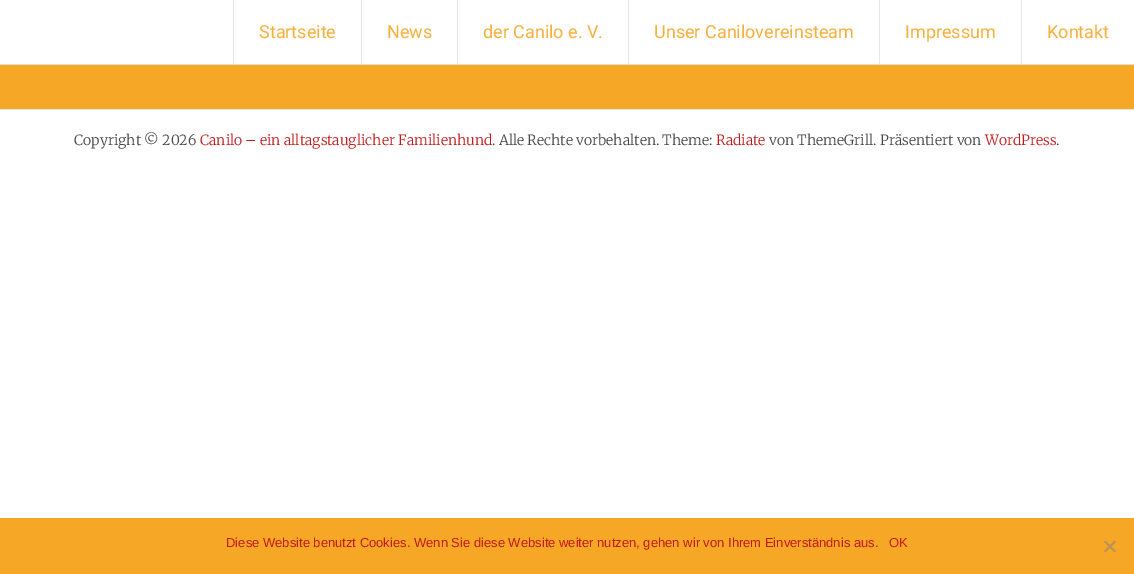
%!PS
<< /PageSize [1134 574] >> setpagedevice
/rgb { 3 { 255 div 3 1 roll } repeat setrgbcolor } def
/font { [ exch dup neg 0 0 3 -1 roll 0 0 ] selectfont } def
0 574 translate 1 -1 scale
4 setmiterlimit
255 255 255 rgb
0 0 1134 574 rectfill
[
  [0 64 1134 1 227 222 211]
  [233 0 1 64 228 231 233]
  [361 0 1 64 228 231 233]
  [457 0 1 64 228 231 233]
  [628 0 1 64 228 231 233]
  [879 0 1 64 228 231 233]
  [1021 0 1 64 228 231 233]
  [0 65 1134 44 247 167 38]
  [0 109 1134 1 225 228 230]
  [0 518 1134 56 247 167 38]
] { aload pop rgb rectfill } forall
188 148 83 rgb
1114.5 540.5 moveto 1116 542 lineto 1105.5 552.5 lineto 1104 551 lineto closepath fill
1104 542 moveto 1105.5 540.5 lineto 1116 551 lineto 1114.5 552.5 lineto closepath fill
/Roboto-Regular 18 font
248 176 61 rgb
[
  [(Startseite) 259 38]
  [(News) 387 38]
  [(der Canilo e. V.) 483 38]
  [(Unser Canilovereinsteam) 654 38]
  [(Impressum) 905 38]
  [(Kontakt) 1047 38]
] { aload pop moveto show } forall
/Merriweather-Light 14 font
68 68 68 rgb
74 145 moveto (Copyright © 2026) show
194 25 25 rgb
200 145 moveto (Canilo – ein alltagstauglicher Familienhund) show
68 68 68 rgb
492 145 moveto (. Alle Rechte vorbehalten. Theme:) show
194 25 25 rgb
716 145 moveto (Radiate) show
68 68 68 rgb
769 145 moveto (von ThemeGrill. Präsentiert von) show
194 25 25 rgb
985 145 moveto (WordPress) show
68 68 68 rgb
1056 145 moveto (.) show
/LiberationSans-Regular 13 font
194 25 25 rgb
226 547 moveto (Diese Website benutzt Cookies. Wenn Sie diese Website weiter nutzen, gehen wir von Ihrem Einverständnis aus.) show
889 547 moveto (OK) show
showpage
